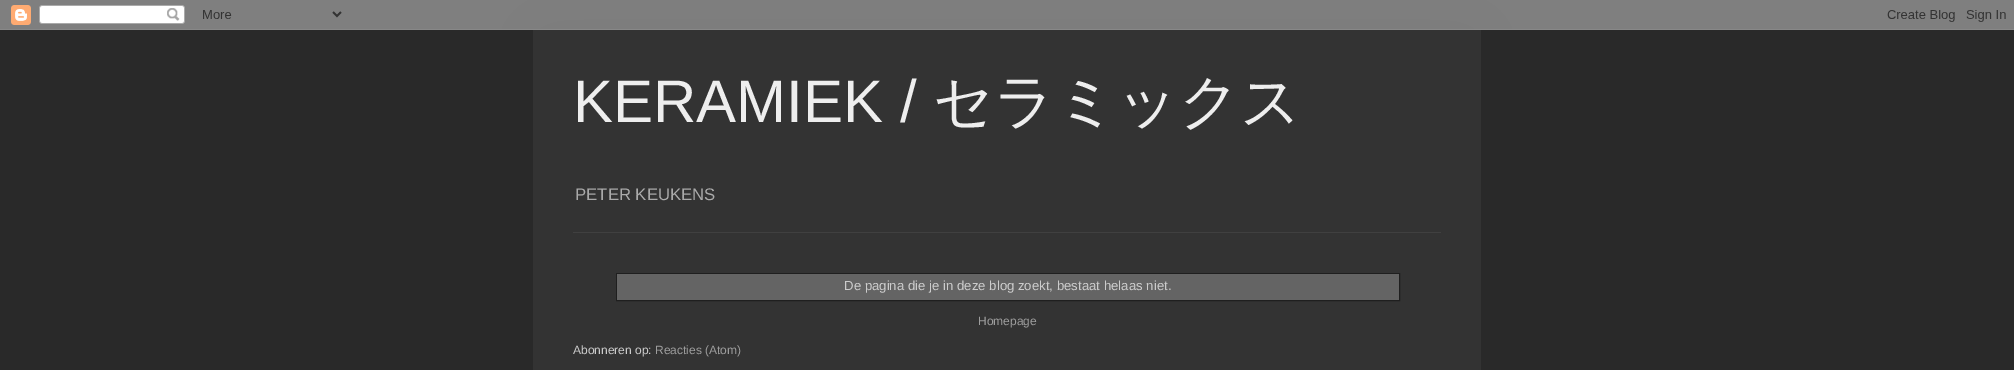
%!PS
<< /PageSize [2014 370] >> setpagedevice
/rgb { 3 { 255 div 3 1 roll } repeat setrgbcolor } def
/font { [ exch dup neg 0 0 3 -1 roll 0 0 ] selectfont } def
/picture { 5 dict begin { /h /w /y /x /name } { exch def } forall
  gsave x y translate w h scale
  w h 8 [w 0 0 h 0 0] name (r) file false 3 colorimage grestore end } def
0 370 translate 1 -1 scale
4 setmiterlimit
41 41 41 rgb
0 0 2014 370 rectfill
(img/1.rgb) 0 0 2014 30 picture
51 51 51 rgb
533 30 948 340 rectfill
64 64 64 rgb
573 232 868 1 rectfill
31 31 31 rgb
616.5 273.5 783 27 rectstroke
100 100 100 rgb
617 274 782 26 rectfill
/LiberationSans-Regular 60 font
238 238 238 rgb
573 122 moveto (KERAMIEK /) show
/WenQuanYiZenHei-Medium 60 font
933 122 moveto (セラミックス) show
/LiberationSans-Regular 16.75 font
170 170 170 rgb
575 200 moveto (PETER KEUKENS) show
/LiberationSans-Regular 13.2 font
204 204 204 rgb
844 290 moveto (De pagina die je in deze blog zoekt, bestaat helaas niet.) show
/LiberationSans-Regular 12 font
158 158 158 rgb
978 325 moveto (Homepage) show
204 204 204 rgb
573 354 moveto (Abonneren op:) show
158 158 158 rgb
655 354 moveto (Reacties \(Atom\)) show
showpage
